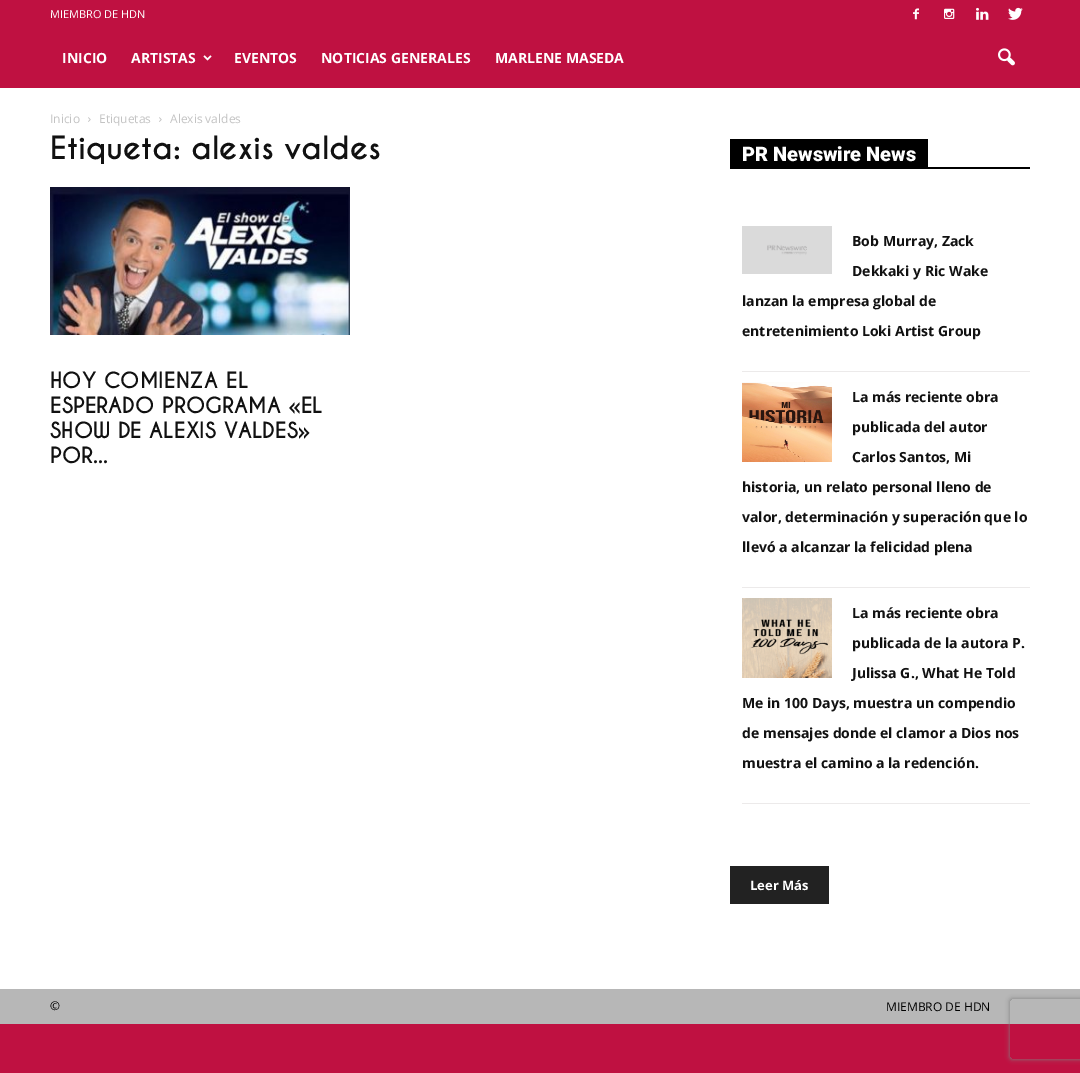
%!PS
<< /PageSize [1080 1073] /PageUsesTransparency true >> setpagedevice
/rgb { 3 { 255 div 3 1 roll } repeat setrgbcolor } def
/font { [ exch dup neg 0 0 3 -1 roll 0 0 ] selectfont } def
/alpha { dup .setfillconstantalpha .setstrokeconstantalpha } def
/roundrect { 5 dict begin { /r /h /w /y /x } { exch def } forall
  x r add y moveto x w add y 2 copy h add r arct x w add y h add x 1 index r arct
  x y h add x y r arct x y 2 copy exch w add exch r arct closepath end } def
/shadow { 12 dict begin { /a /b /q /h /w /y /x } { exch def } forall gsave /was 0 def
  9 -2 -9 { dup b mul 4 div /e exch def 1 sub .425 mul 2.718 exch exp 1 add a .99 .min exch div /now exch def
    1 1 now sub 1 was sub div sub alpha /was now def
    w h .min e 2 mul add 0 gt { x e sub y e sub w e 2 mul add h e 2 mul add
      q e add b .6 mul add w h .min 2 div e add .min 0 .max roundrect fill } if } for grestore end } def
/picture { 5 dict begin { /h /w /y /x /name } { exch def } forall
  gsave x y translate w h scale
  w h 8 [w 0 0 h 0 0] name (r) file false 3 colorimage grestore end } def
0 .pushpdf14devicefilter
0 1073 translate 1 -1 scale
4 setmiterlimit
191 17 65 rgb
0 0 1080 1073 rectfill
(img/1.rgb) 913 8 6 12 picture
(img/2.rgb) 944 8 11 11 picture
(img/3.rgb) 976 7 13 13 picture
(img/4.rgb) 1008 7 15 13 picture
(img/5.rgb) 203 55 9 6 picture
(img/6.rgb) 998 48 17 18 picture
255 255 255 rgb
0 88 1080 901 rectfill
(img/7.rgb) 88 117 3 5 picture
(img/7.rgb) 159 117 3 5 picture
(img/8.rgb) 50 187 300 148 picture
[
  [730 167 300 2 0 0 0]
  [730 139 198 28 0 0 0]
  [742 371 288 1 236 234 234]
] { aload pop rgb rectfill } forall
(img/9.rgb) 742 226 90 48 picture
742 587 288 1 rectfill
(img/10.rgb) 742 382 90 80 picture
742 803 288 1 rectfill
(img/11.rgb) 742 598 90 80 picture
34 34 34 rgb
730 866 99 38 rectfill
183 183 183 rgb
0 989 1080 35 rectfill
gsave
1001 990 moveto 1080 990 lineto 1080 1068 lineto 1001 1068 lineto closepath 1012 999 moveto 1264 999 lineto 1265 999 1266 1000 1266 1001 curveto 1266 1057 lineto 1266 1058 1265 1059 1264 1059 curveto 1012 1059 lineto 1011 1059 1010 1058 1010 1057 curveto 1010 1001 lineto 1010 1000 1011 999 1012 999 curveto closepath eoclip newpath
128 128 128 rgb
1010 999 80 60 2 2.5 1 shadow
grestore
/OpenSans-Regular 11 font
255 255 255 rgb
50 18 moveto (MIEMBRO DE HDN) show
/OpenSans-Bold 14 font
[
  [(INICIO) 62 63]
  [(ARTISTAS) 131 63]
  [(EVENTOS) 234 63]
  [(NOTICIAS GENERALES) 321 63]
  [(MARLENE MASEDA) 495 63]
] { aload pop moveto show } forall
/OpenSans-Regular 12 font
195 195 195 rgb
[
  [(Inicio) 50 123]
  [(Etiquetas) 99 123]
  [(Alexis valdes) 170 123]
] { aload pop moveto show } forall
/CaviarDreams-Bold 30 font
17 17 17 rgb
50 159 moveto (Etiqueta: alexis valdes) show
/CaviarDreams-Bold 21 font
[
  [(HOY COMIENZA EL) 50 388]
  [(ESPERADO PROGRAMA «EL) 50 413]
  [(SHOW DE ALEXIS VALDES») 50 438]
  [(POR...) 50 463]
] { aload pop moveto show } forall
/Roboto-Black 20 font
255 255 255 rgb
742 161 moveto (PR Newswire News) show
/OpenSans-Bold 14 font
17 17 17 rgb
[
  [(Bob Murray, Zack) 852 246]
  [(Dekkaki y Ric Wake) 852 276]
  [(lanzan la empresa global de) 742 306]
  [(entretenimiento Loki Artist Group) 742 336]
  [(La más reciente obra) 852 402]
  [(publicada del autor) 852 432]
  [(Carlos Santos, Mi) 852 462]
  [(historia, un relato personal lleno de) 742 492]
  [(valor, determinación y superación que lo) 742 522]
  [(llevó a alcanzar la felicidad plena) 742 552]
  [(La más reciente obra) 852 618]
  [(publicada de la autora P.) 852 648]
  [(Julissa G., What He Told) 852 678]
  [(Me in 100 Days, muestra un compendio) 742 708]
  [(de mensajes donde el clamor a Dios nos) 742 738]
  [(muestra el camino a la redención.) 742 768]
] { aload pop moveto show } forall
/OpenSans-Bold 13 font
255 255 255 rgb
750 890 moveto (Leer Más) show
/OpenSans-Regular 12 font
0 0 0 rgb
50 1010 moveto (©) show
886 1011 moveto (MIEMBRO DE HDN) show
.poppdf14devicefilter showpage
